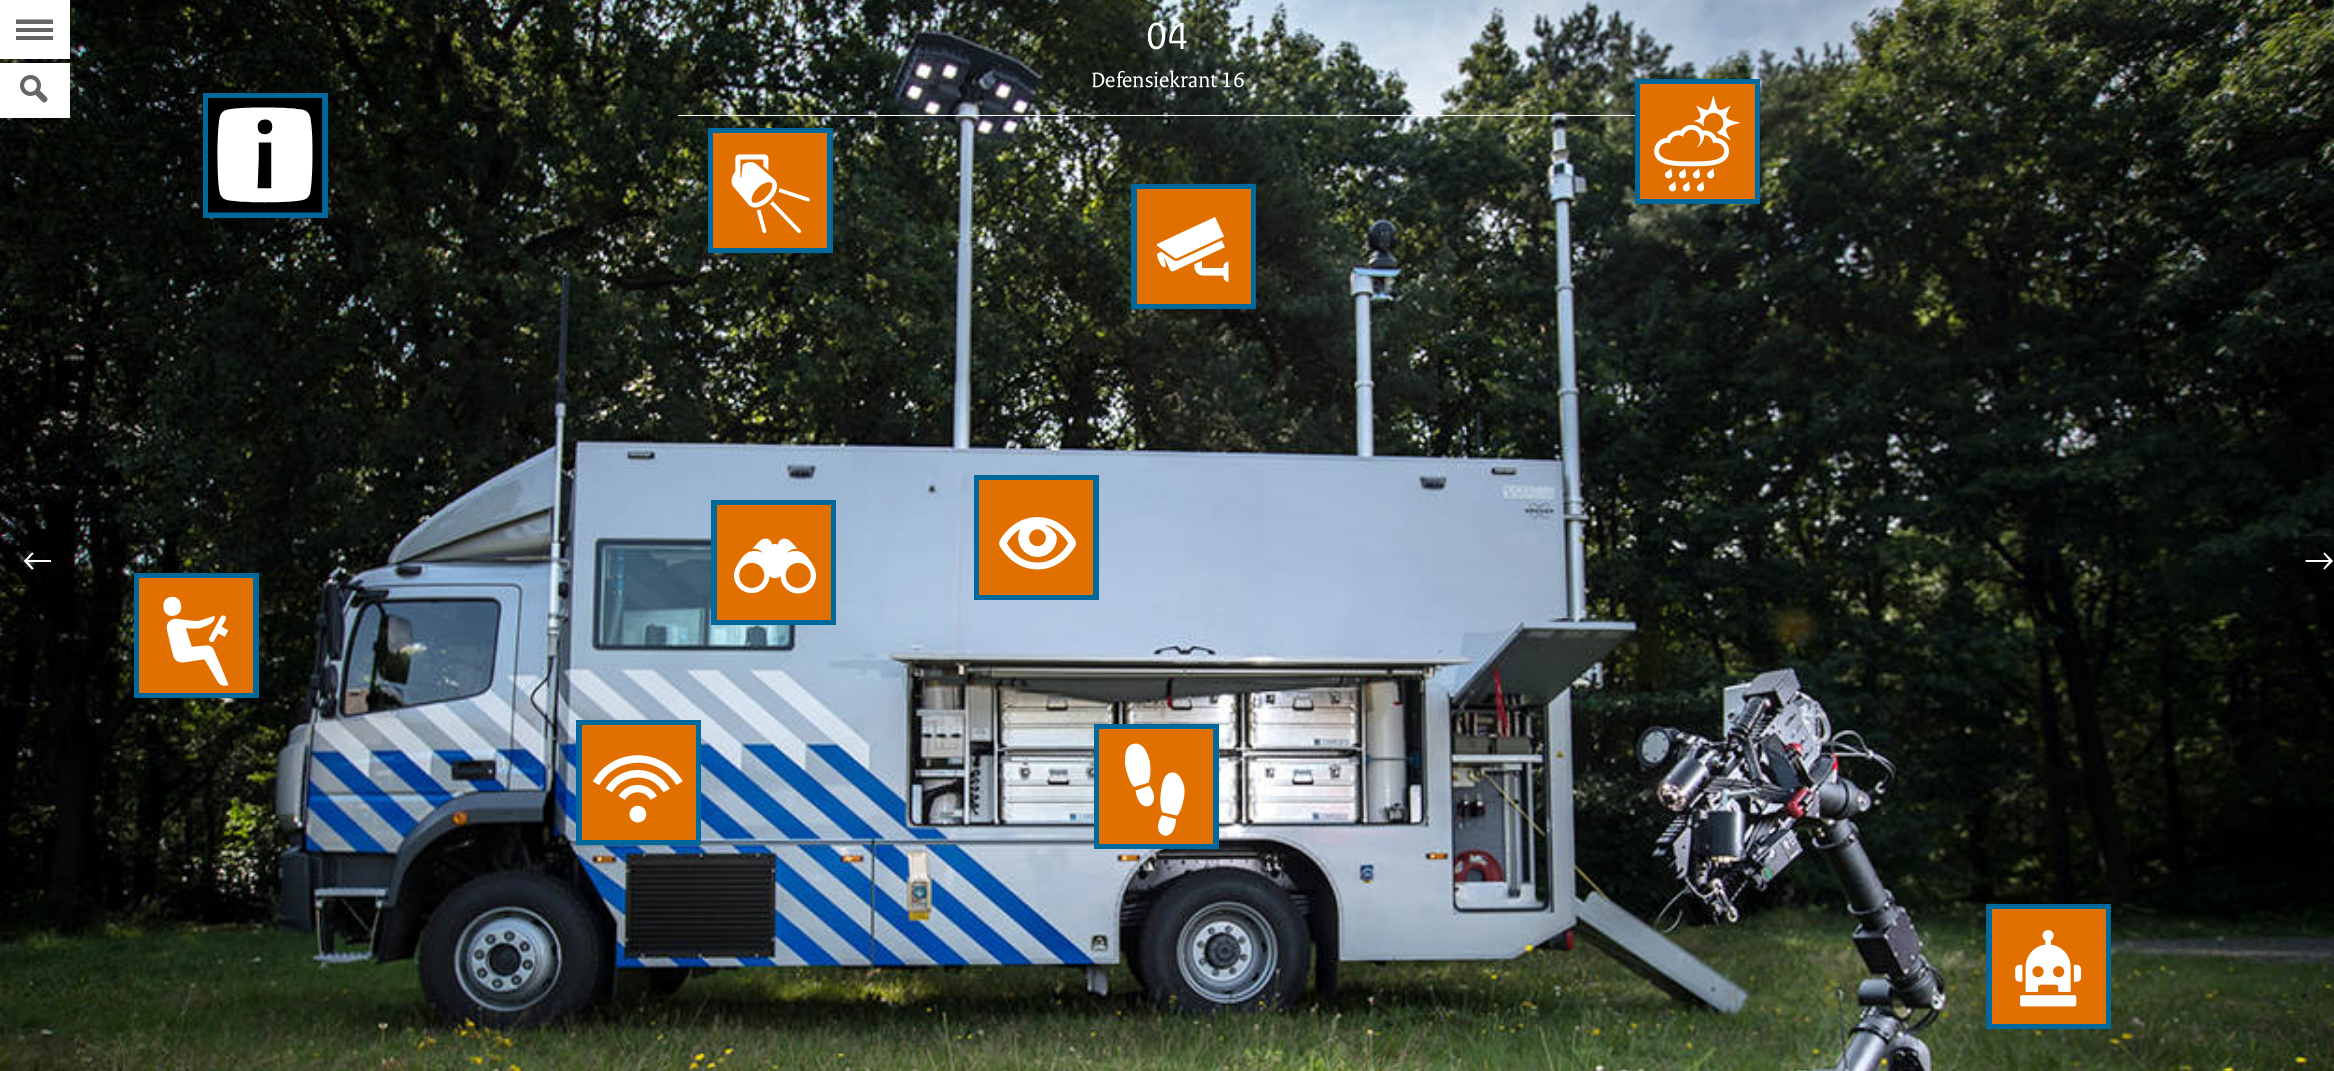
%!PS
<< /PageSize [2334 1071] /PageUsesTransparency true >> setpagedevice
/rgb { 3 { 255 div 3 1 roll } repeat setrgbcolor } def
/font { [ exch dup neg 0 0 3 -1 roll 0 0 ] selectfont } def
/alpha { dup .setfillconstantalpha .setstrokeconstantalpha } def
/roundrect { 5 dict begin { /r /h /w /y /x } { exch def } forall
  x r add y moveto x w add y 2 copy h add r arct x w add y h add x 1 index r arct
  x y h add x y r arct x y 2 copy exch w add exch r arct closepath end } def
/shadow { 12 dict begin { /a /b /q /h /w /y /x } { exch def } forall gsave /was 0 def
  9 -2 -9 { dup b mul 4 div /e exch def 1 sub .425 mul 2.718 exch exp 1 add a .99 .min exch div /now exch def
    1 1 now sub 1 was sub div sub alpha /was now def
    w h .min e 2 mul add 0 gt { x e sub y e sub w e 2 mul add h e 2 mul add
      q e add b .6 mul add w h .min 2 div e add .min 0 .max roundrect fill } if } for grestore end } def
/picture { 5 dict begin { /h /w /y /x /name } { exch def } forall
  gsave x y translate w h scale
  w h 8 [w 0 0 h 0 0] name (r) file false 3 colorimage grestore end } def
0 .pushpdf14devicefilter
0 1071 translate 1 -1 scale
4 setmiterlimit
255 255 255 rgb
0 0 2334 1071 rectfill
(img/1.rgb) 0 0 2334 1071 picture
0 0 0 rgb
3 3 70 58 0 2 0.2 shadow
255 255 255 rgb
0 0 70 59 rectfill
102 102 102 rgb
16 19.5 moveto 16 24 lineto 53 24 lineto 53 19.5 lineto closepath 16 28 moveto 16 32 lineto 53 32 lineto 53 28 lineto closepath 16 36 moveto 16 40 lineto 53 40 lineto 53 36 lineto closepath fill
1 104 155 rgb
203 93 125 125 rectfill
(img/2.rgb) 208 98 115 115 picture
708 128 125 125 rectfill
(img/3.rgb) 713 133 114 115 picture
1131 184 125 125 rectfill
(img/4.rgb) 1137 189 114 115 picture
1635 79 125 125 rectfill
(img/5.rgb) 1640 84 115 115 picture
134 573 125 125 rectfill
(img/6.rgb) 139 578 114 115 picture
711 500 125 125 rectfill
(img/7.rgb) 717 505 114 115 picture
974 475 125 125 rectfill
(img/8.rgb) 979 480 114 115 picture
576 720 125 125 rectfill
(img/9.rgb) 582 725 114 115 picture
1094 724 125 125 rectfill
(img/10.rgb) 1099 729 114 115 picture
1986 904 125 125 rectfill
(img/11.rgb) 1992 909 114 115 picture
255 255 255 rgb
678 115 957 1 rectfill
0 0 0 rgb
1 64 70 55 0 0.5 0.2 shadow
255 255 255 rgb
0 63 70 55 rectfill
(img/12.rgb) 20 75 28 28 picture
0.5 alpha
0 0 0 rgb
0 536 45 49 rectfill
1 alpha
255 255 255 rgb
32 569.5 moveto 33.5 568.5 lineto 28 562 lineto 51 562 lineto 51 560 lineto 27.5 560 lineto 33.5 553.5 lineto 32 552.5 lineto 24 561 lineto closepath fill
0.5 alpha
0 0 0 rgb
2299 536 35 49 rectfill
1 alpha
255 255 255 rgb
2324.5 552.5 moveto 2323.5 553.5 lineto 2329 560 lineto 2305.5 560 lineto 2306 562 lineto 2329 562 lineto 2323.5 568.5 lineto 2324.5 569.5 lineto 2333 561 lineto closepath fill
/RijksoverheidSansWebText-Regular 40 font
1146 49 moveto (04) show
/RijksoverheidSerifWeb-Regular 22.5 font
1091 87 moveto (Defensiekrant 16) show
.poppdf14devicefilter showpage
